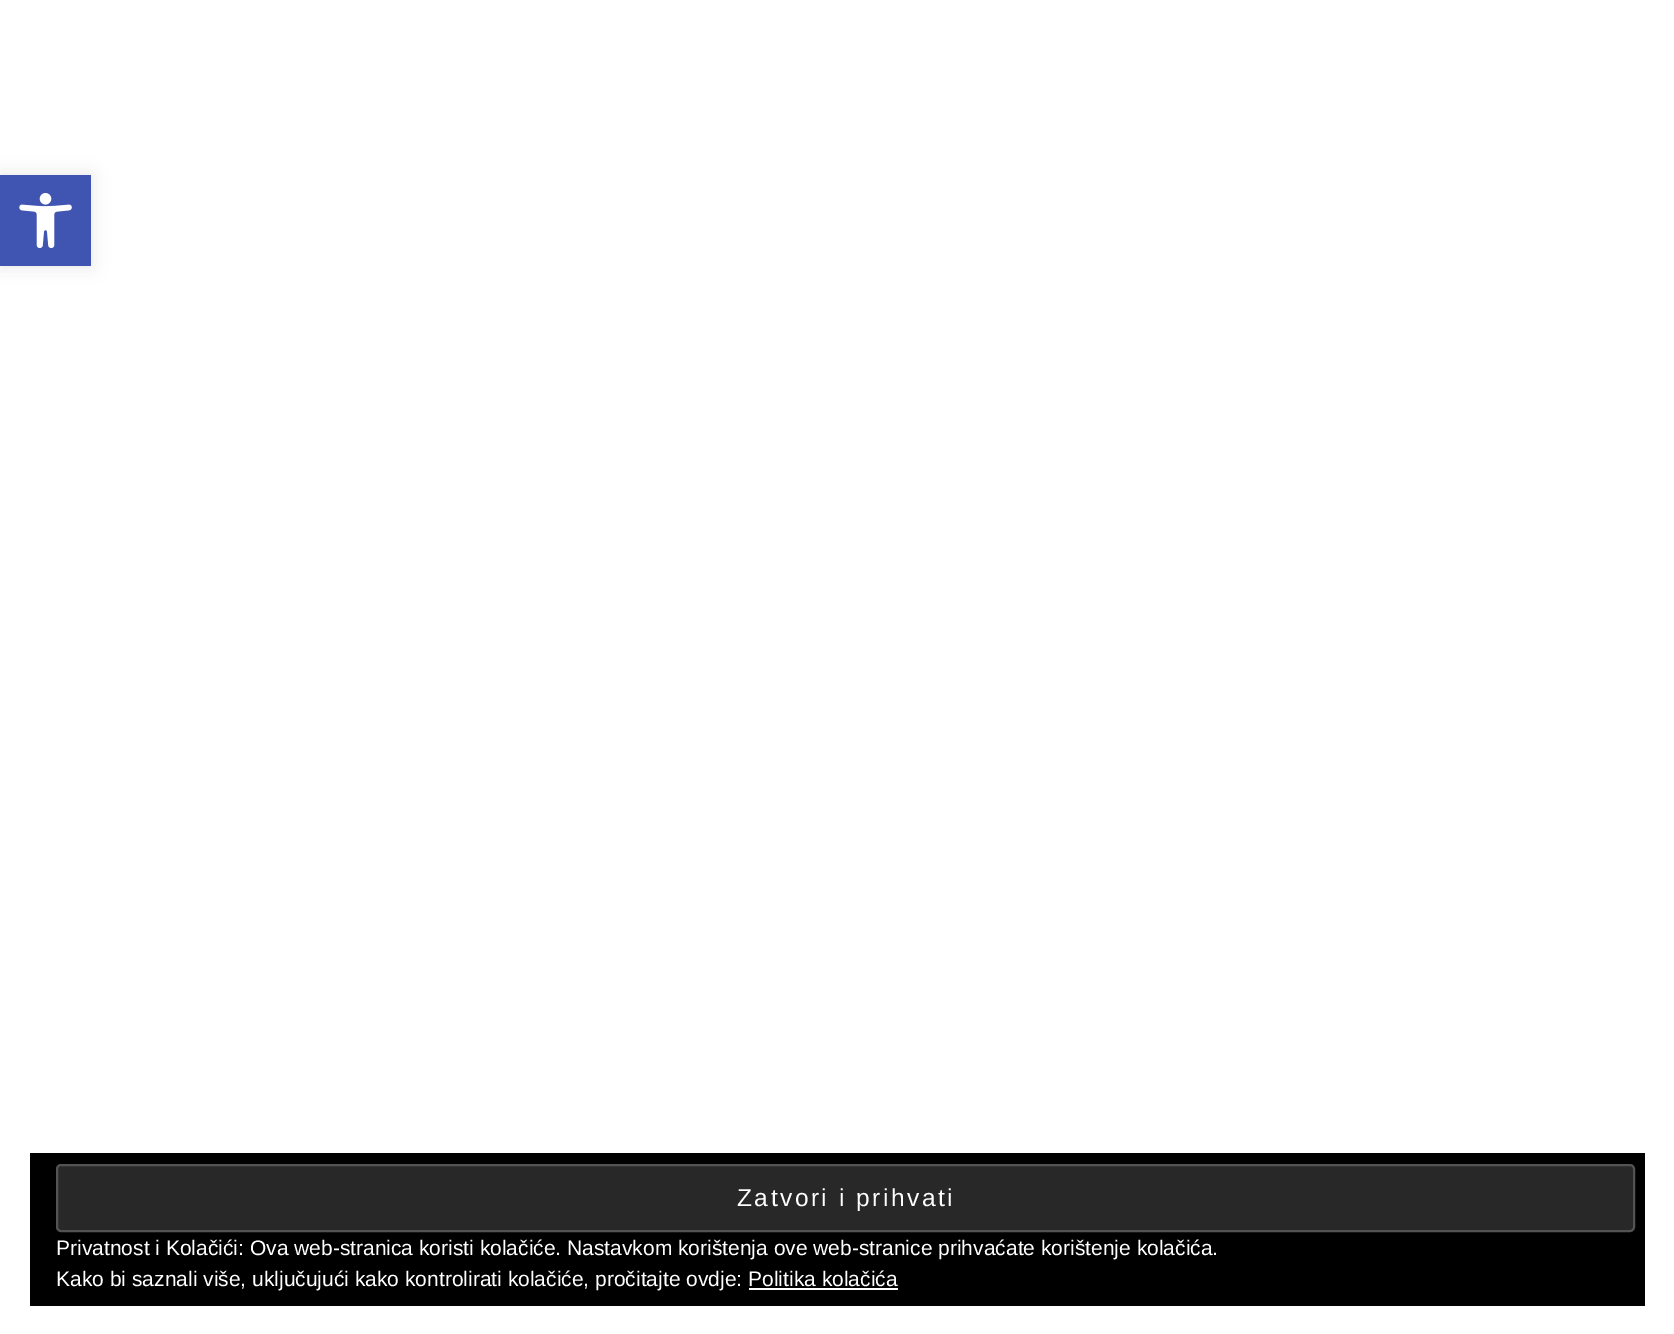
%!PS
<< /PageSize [1674 1334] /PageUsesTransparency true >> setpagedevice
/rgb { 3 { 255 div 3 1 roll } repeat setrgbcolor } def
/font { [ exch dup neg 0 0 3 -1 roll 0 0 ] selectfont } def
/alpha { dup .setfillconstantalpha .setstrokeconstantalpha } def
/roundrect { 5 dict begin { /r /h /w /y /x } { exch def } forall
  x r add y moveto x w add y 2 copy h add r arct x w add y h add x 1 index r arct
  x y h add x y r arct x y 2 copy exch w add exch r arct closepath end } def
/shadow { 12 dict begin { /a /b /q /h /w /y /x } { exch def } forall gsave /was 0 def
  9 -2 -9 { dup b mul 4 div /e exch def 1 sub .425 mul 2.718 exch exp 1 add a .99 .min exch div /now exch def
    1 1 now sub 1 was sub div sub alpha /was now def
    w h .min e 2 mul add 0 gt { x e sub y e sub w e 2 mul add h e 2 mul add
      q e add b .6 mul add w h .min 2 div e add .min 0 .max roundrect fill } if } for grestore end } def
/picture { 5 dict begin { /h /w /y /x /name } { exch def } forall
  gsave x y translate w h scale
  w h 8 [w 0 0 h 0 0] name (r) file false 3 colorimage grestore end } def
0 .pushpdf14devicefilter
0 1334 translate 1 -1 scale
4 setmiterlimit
255 255 255 rgb
0 0 1674 1334 rectfill
0 0 0 rgb
0 175 91 91 0 9 0.1 shadow
64 84 178 rgb
0 175 91 91 rectfill
(img/1.rgb) 19 193 53 56 picture
0 0 0 rgb
30 1153 1615 153 rectfill
40 40 40 rgb
57 1165 1577 66 4 roundrect gsave fill grestore
83 83 83 rgb
2 setlinewidth
stroke
255 255 255 rgb
749 1288 149 2 rectfill
/LiberationSans-Regular 24.5 font
737 1206 moveto 2.5 0 (Zatvori i prihvati) ashow
/LiberationSans-Regular 21 font
56 1255 moveto (Privatnost i Kolačići: Ova web-stranica koristi kolačiće. Nastavkom korištenja ove web-stranice prihvaćate korištenje kolačića.) show
56 1286 moveto (Kako bi saznali više, uključujući kako kontrolirati kolačiće, pročitajte ovdje: Politika kolačića) show
.poppdf14devicefilter showpage
